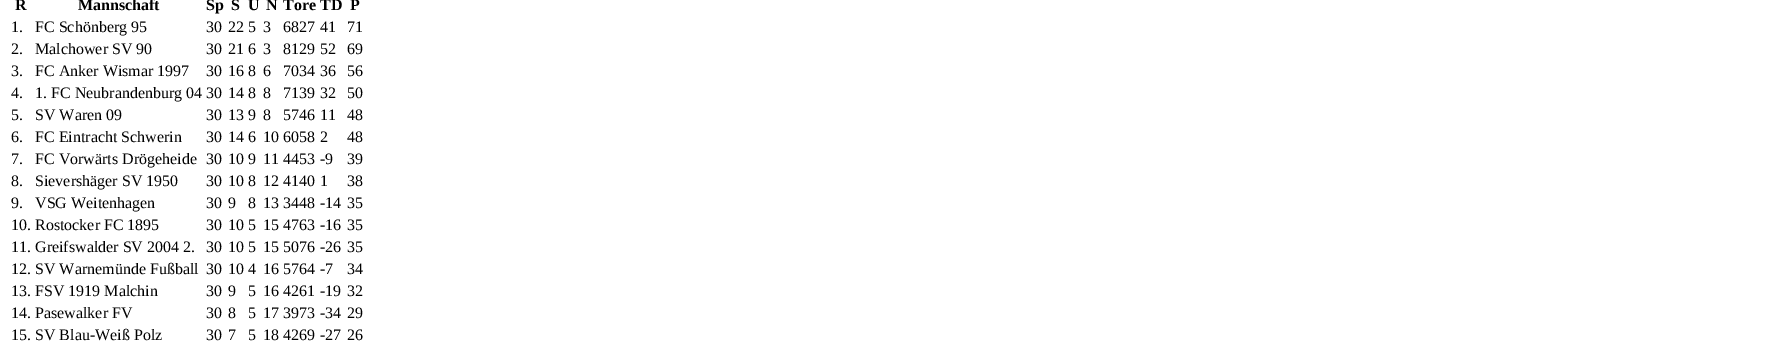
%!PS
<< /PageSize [1784 353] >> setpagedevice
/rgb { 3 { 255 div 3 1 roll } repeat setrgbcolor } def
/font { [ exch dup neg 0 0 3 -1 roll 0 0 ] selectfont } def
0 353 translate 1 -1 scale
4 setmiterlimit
255 255 255 rgb
0 0 1784 353 rectfill
/LiberationSerif-Bold 16 font
0 0 0 rgb
[
  [(R) 15 10]
  [(Mannschaft) 78 10]
  [(Sp) 206 10]
  [(S) 231 10]
  [(U) 248 10]
  [(N) 266 10]
  [(Tore TD) 283 10]
  [(P) 350 10]
] { aload pop moveto show } forall
/LiberationSerif-Regular 16 font
[
  [(1.) 11 32]
  [(FC Schönberg 95) 35 32]
  [(30) 206 32]
  [(22 5) 228 32]
  [(3) 263 32]
  [(6827) 283 32]
  [(41) 320 32]
  [(71) 347 32]
  [(2.) 11 54]
  [(Malchower SV 90) 35 54]
  [(30) 206 54]
  [(21 6) 228 54]
  [(3) 263 54]
  [(8129) 283 54]
  [(52) 320 54]
  [(69) 347 54]
  [(3.) 11 76]
  [(FC Anker Wismar 1997) 35 76]
  [(30) 206 76]
  [(16 8) 228 76]
  [(6) 263 76]
  [(7034) 283 76]
  [(36) 320 76]
  [(56) 347 76]
  [(4.) 11 98]
  [(1. FC Neubrandenburg 04 30) 35 98]
  [(14 8) 228 98]
  [(8) 263 98]
  [(7139) 283 98]
  [(32) 320 98]
  [(50) 347 98]
  [(5.) 11 120]
  [(SV Waren 09) 35 120]
  [(30) 206 120]
  [(13 9) 228 120]
  [(8) 263 120]
  [(5746) 283 120]
  [(11) 320 120]
  [(48) 347 120]
  [(6.) 11 142]
  [(FC Eintracht Schwerin) 35 142]
  [(30) 206 142]
  [(14 6) 228 142]
  [(10 6058) 263 142]
  [(2) 320 142]
  [(48) 347 142]
  [(7.) 11 164]
  [(FC Vorwärts Drögeheide) 35 164]
  [(30) 206 164]
  [(10 9) 228 164]
  [(11 4453) 263 164]
  [(-9) 320 164]
  [(39) 347 164]
  [(8.) 11 186]
  [(Sievershäger SV 1950) 35 186]
  [(30) 206 186]
  [(10 8) 228 186]
  [(12 4140) 263 186]
  [(1) 320 186]
  [(38) 347 186]
  [(9.) 11 208]
  [(VSG Weitenhagen) 35 208]
  [(30) 206 208]
  [(9) 228 208]
  [(8) 248 208]
  [(13 3448) 263 208]
  [(-14) 320 208]
  [(35) 347 208]
  [(10. Rostocker FC 1895) 11 230]
  [(30) 206 230]
  [(10 5) 228 230]
  [(15 4763) 263 230]
  [(-16) 320 230]
  [(35) 347 230]
  [(11. Greifswalder SV 2004 2.) 11 252]
  [(30) 206 252]
  [(10 5) 228 252]
  [(15 5076) 263 252]
  [(-26) 320 252]
  [(35) 347 252]
  [(12. SV Warnemünde Fußball) 11 274]
  [(30) 206 274]
  [(10 4) 228 274]
  [(16 5764) 263 274]
  [(-7) 320 274]
  [(34) 347 274]
  [(13. FSV 1919 Malchin) 11 296]
  [(30) 206 296]
  [(9) 228 296]
  [(5) 248 296]
  [(16 4261) 263 296]
  [(-19) 320 296]
  [(32) 347 296]
  [(14. Pasewalker FV) 11 318]
  [(30) 206 318]
  [(8) 228 318]
  [(5) 248 318]
  [(17 3973) 263 318]
  [(-34) 320 318]
  [(29) 347 318]
  [(15. SV Blau-Weiß Polz) 11 340]
  [(30) 206 340]
  [(7) 228 340]
  [(5) 248 340]
  [(18 4269) 263 340]
  [(-27) 320 340]
  [(26) 347 340]
] { aload pop moveto show } forall
showpage
